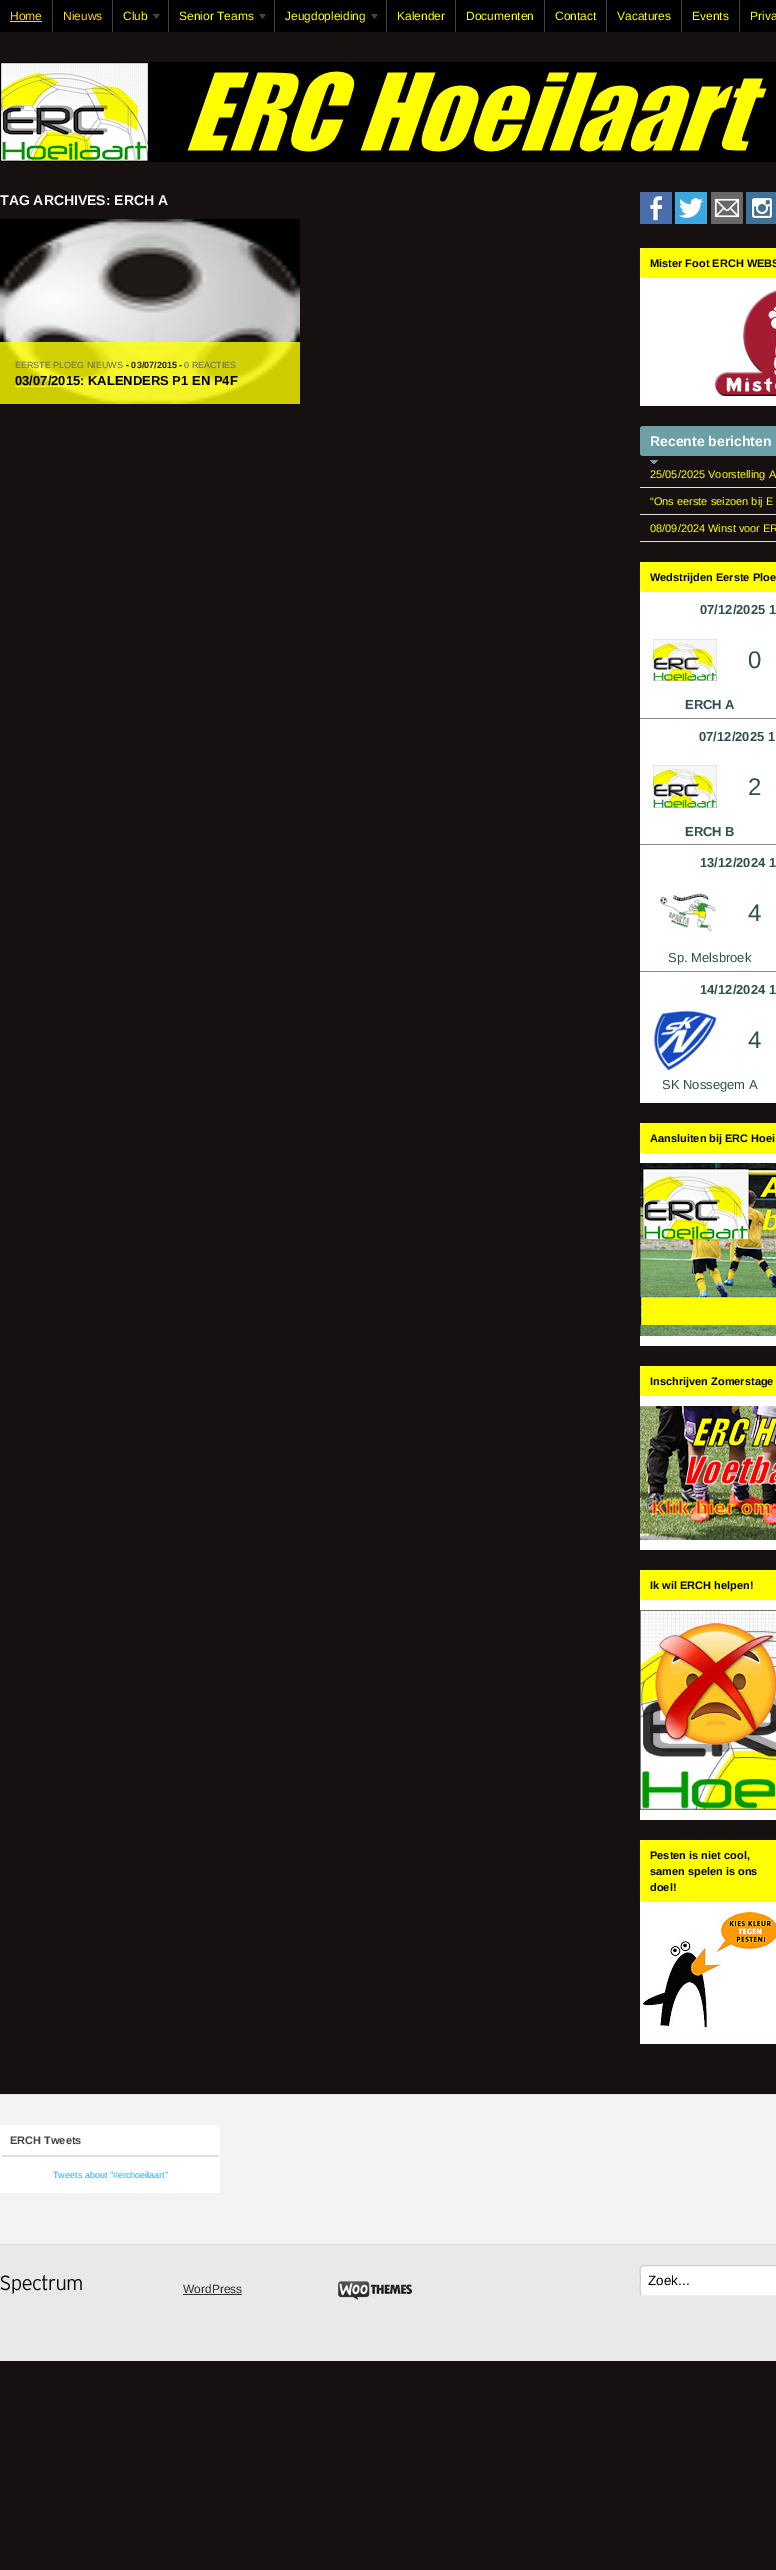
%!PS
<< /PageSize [776 2570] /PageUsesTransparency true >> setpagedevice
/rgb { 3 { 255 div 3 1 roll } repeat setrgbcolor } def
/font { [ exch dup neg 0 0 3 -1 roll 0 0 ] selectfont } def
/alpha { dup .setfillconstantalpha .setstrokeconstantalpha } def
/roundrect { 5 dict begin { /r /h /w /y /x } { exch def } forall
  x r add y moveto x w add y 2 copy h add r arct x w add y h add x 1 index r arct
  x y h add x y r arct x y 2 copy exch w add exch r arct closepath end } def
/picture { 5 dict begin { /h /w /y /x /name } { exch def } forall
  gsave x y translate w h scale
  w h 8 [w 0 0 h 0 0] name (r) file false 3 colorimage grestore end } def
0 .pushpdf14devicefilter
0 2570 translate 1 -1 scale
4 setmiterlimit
22 17 16 rgb
0 0 776 2570 rectfill
[
  [0 0 776 32 0 0 0]
  [52 0 1 32 65 65 65]
  [10 21 32 1 255 215 0]
  [112 0 1 32 65 65 65]
  [168 0 1 32 65 65 65]
] { aload pop rgb rectfill } forall
(img/1.rgb) 153 14 7 5 picture
274 0 1 32 rectfill
(img/1.rgb) 259 14 7 5 picture
386 0 1 32 rectfill
(img/1.rgb) 371 14 7 5 picture
[
  [455 0 1 32 65 65 65]
  [544 0 1 32 65 65 65]
  [606 0 1 32 65 65 65]
  [681 0 1 32 65 65 65]
  [739 0 1 32 65 65 65]
] { aload pop rgb rectfill } forall
(img/2.rgb) 0 62 776 100 picture
0 0 0 rgb
0 219 300 185 rectfill
(img/3.rgb) 0 219 300 185 picture
0.8 alpha
255 255 0 rgb
0 342 300 62 rectfill
1 alpha
15 386 223 1 rectfill
(img/4.rgb) 640 192 32 32 picture
(img/5.rgb) 675 192 32 32 picture
(img/6.rgb) 711 192 32 32 picture
(img/7.rgb) 746 192 30 32 picture
255 255 255 rgb
640 248 136 158 rectfill
255 255 0 rgb
640 248 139 30 3 roundrect fill
(img/8.rgb) 715 290 61 106 picture
108 160 168 rgb
640 426 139 30 3 roundrect fill
(img/9.rgb) 650 460 8 4 picture
[
  [640 487 136 1 223 223 223]
  [640 514 136 1 223 223 223]
  [640 541 136 1 223 223 223]
  [640 562 136 541 255 255 255]
] { aload pop rgb rectfill } forall
255 255 0 rgb
640 562 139 30 3 roundrect fill
(img/10.rgb) 653 639 64 42 picture
136 136 136 rgb
640 718 136 1 rectfill
(img/11.rgb) 653 765 64 43 picture
640 844 136 1 rectfill
(img/12.rgb) 660 893 56 39 picture
640 971 136 1 rectfill
(img/13.rgb) 653 1010 64 61 picture
255 255 255 rgb
640 1123 136 223 rectfill
255 255 0 rgb
640 1123 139 30 3 roundrect fill
(img/14.rgb) 640 1163 136 173 picture
255 255 255 rgb
640 1366 136 184 rectfill
255 255 0 rgb
640 1366 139 30 3 roundrect fill
(img/15.rgb) 640 1406 136 134 picture
255 255 255 rgb
640 1570 136 250 rectfill
255 255 0 rgb
640 1570 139 30 3 roundrect fill
(img/16.rgb) 640 1610 136 200 picture
255 255 255 rgb
640 1840 136 204 rectfill
255 255 0 rgb
640 1840 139 62 3 roundrect fill
(img/17.rgb) 643 1912 133 119 picture
[
  [0 2095 776 149 243 243 243]
  [0 2094 776 1 233 233 233]
  [0 2125 220 68 255 255 255]
  [2 2155 217 2 223 223 223]
  [0 2245 776 116 233 233 233]
  [0 2244 776 1 217 217 217]
] { aload pop rgb rectfill } forall
255 255 255 rgb
640 2265 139 31 3 roundrect fill
239 239 239 rgb
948 2266 moveto 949.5 2268 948.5 2281.5 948.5 2284.5 curveto 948.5 2286.5 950.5 2295.5 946 2295.5 curveto 643 2295.5 lineto 641 2295 lineto stroke
204 204 204 rgb
641 2295 moveto 639.5 2293 640.5 2279.5 640.5 2276.5 curveto 640.5 2274.5 638.5 2265.5 643 2265.5 curveto 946 2265.5 lineto 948 2266 lineto stroke
(img/18.rgb) 0 2275 82 19 picture
47 47 47 rgb
183 2294 59 1 rectfill
(img/19.rgb) 338 2281 74 19 picture
/LiberationSans-Regular 12 font
255 215 0 rgb
10 20 moveto (Home) show
63 20 moveto (Nieuws) show
255 255 0 rgb
[
  [(Club) 123 20]
  [(Senior Teams) 179 20]
  [(Jeugdopleiding) 285 20]
  [(Kalender) 397 20]
  [(Documenten) 466 20]
  [(Contact) 555 20]
  [(Vacatures) 617 20]
  [(Events) 692 20]
  [(Priva) 750 20]
] { aload pop moveto show } forall
/LiberationSans-Bold 14 font
245 245 245 rgb
0 205 moveto (TAG ARCHIVES: ERCH A) show
/LiberationSans-Regular 9 font
102 102 102 rgb
15 368 moveto (EERSTE PLOEG NIEUWS) show
/LiberationSans-Bold 9 font
34 34 34 rgb
126 368 moveto (- 03/07/2015 -) show
/LiberationSans-Regular 9 font
102 102 102 rgb
184 368 moveto (0 REACTIES) show
/LiberationSans-Bold 13 font
0 0 0 rgb
15 385 moveto (03/07/2015: KALENDERS P1 EN P4F) show
/LiberationSans-Bold 11 font
650 267 moveto (Mister Foot ERCH WEBS) show
/LiberationSans-Bold 14 font
255 255 255 rgb
650 446 moveto (Recente berichten) show
/LiberationSans-Regular 11 font
255 255 0 rgb
[
  [(25/05/2025 Voorstelling A) 650 478]
  [(“Ons eerste seizoen bij E) 650 505]
  [(08/09/2024 Winst voor ER) 650 532]
] { aload pop moveto show } forall
/LiberationSans-Bold 11 font
0 0 0 rgb
650 581 moveto (Wedstrijden Eerste Ploe) show
/LiberationSans-Bold 13 font
47 79 79 rgb
700 614 moveto (07/12/2025 1) show
/LiberationSans-Regular 24 font
748 668 moveto (0) show
/LiberationSans-Bold 13 font
685 709 moveto (ERCH A) show
699 741 moveto (07/12/2025 1) show
/LiberationSans-Regular 24 font
748 795 moveto (2) show
/LiberationSans-Bold 13 font
685 836 moveto (ERCH B) show
700 867 moveto (13/12/2024 1) show
/LiberationSans-Regular 24 font
748 921 moveto (4) show
/LiberationSans-Regular 13 font
668 962 moveto (Sp. Melsbroek) show
/LiberationSans-Bold 13 font
700 994 moveto (14/12/2024 1) show
/LiberationSans-Regular 24 font
748 1048 moveto (4) show
/LiberationSans-Regular 13 font
662 1089 moveto (SK Nossegem A) show
/LiberationSans-Bold 11 font
0 0 0 rgb
[
  [(Aansluiten bij ERC Hoei) 650 1142]
  [(Inschrijven Zomerstage) 650 1385]
  [(Ik wil ERCH helpen!) 650 1589]
  [(Pesten is niet cool,) 650 1859]
  [(samen spelen is ons) 650 1875]
  [(doel!) 650 1891]
] { aload pop moveto show } forall
66 66 66 rgb
10 2144 moveto (ERCH Tweets) show
/LiberationSans-Regular 9 font
34 170 255 rgb
53 2178 moveto (Tweets about "#erchoeilaart") show
/LiberationSans-Regular 13.5 font
0 0 0 rgb
648 2285 moveto (Zoek...) show
/LiberationSans-Regular 12 font
47 47 47 rgb
183 2293 moveto (WordPress) show
.poppdf14devicefilter showpage
